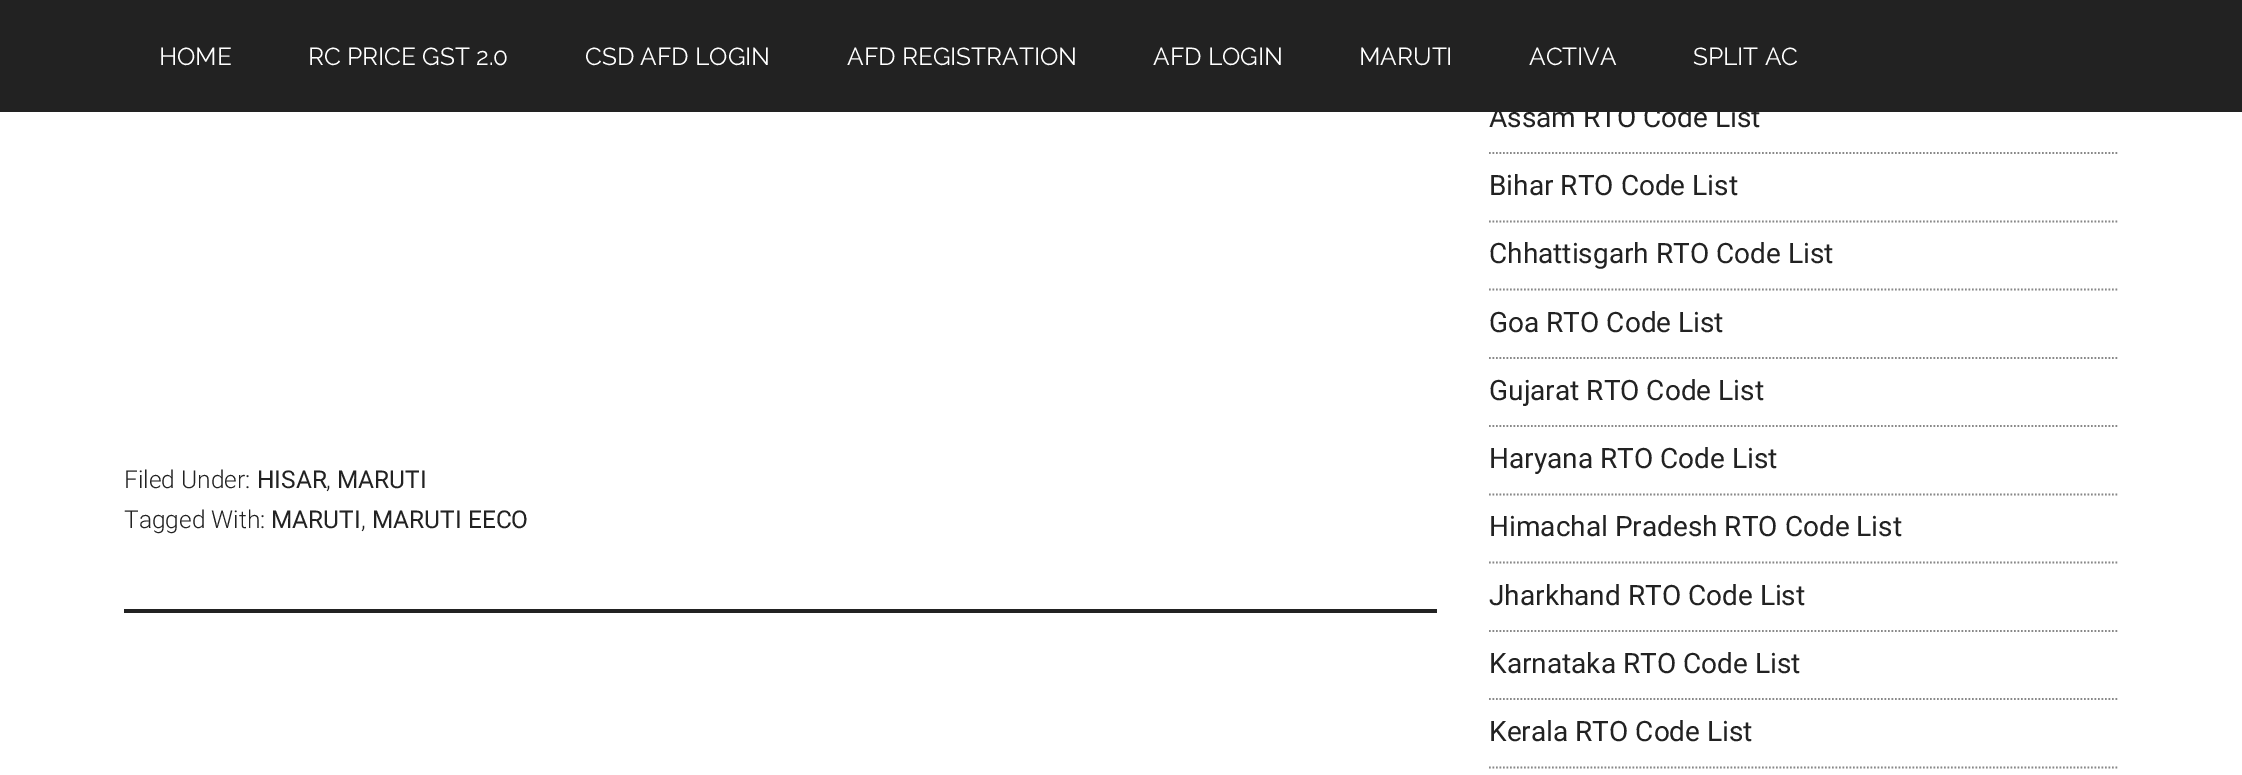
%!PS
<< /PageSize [2242 775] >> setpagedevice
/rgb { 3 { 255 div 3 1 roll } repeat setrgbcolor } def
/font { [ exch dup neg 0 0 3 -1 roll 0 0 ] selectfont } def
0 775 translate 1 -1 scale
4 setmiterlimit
255 255 255 rgb
0 0 2242 775 rectfill
34 34 34 rgb
0 0 2242 112 rectfill
124 609 1313 4 rectfill
136 136 136 rgb
1.8 setlinewidth
[1.75 1.75] 0 setdash
1489 153 moveto 2119 153 lineto stroke
1489 221.5 moveto 2119 221.5 lineto stroke
1489 289.5 moveto 2119 289.5 lineto stroke
1489 358 moveto 2119 358 lineto stroke
1489 426 moveto 2119 426 lineto stroke
1489 494.5 moveto 2119 494.5 lineto stroke
1489 562.5 moveto 2119 562.5 lineto stroke
1489 631 moveto 2119 631 lineto stroke
1489 699 moveto 2119 699 lineto stroke
1489 767.5 moveto 2119 767.5 lineto stroke
/Raleway-Regular 24.5 font
255 255 255 rgb
[
  [(HOME) 159 65]
  [(RC PRICE GST 2.0) 308 65]
  [(CSD AFD LOGIN) 585 65]
  [(AFD REGISTRATION) 847 65]
  [(AFD LOGIN) 1153 65]
  [(MARUTI) 1359 65]
  [(ACTIVA) 1529 65]
  [(SPLIT AC) 1693 65]
] { aload pop moveto show } forall
/Roboto-Light 24.5 font
34 34 34 rgb
124 488 moveto (Filed Under:) show
/Roboto-Regular 24.5 font
257 488 moveto (HISAR) show
/Roboto-Light 24.5 font
326 488 moveto (,) show
/Roboto-Regular 24.5 font
337 488 moveto (MARUTI) show
/Roboto-Light 24.5 font
124 528 moveto (Tagged With:) show
/Roboto-Regular 24.5 font
271 528 moveto (MARUTI) show
/Roboto-Light 24.5 font
361 528 moveto (,) show
/Roboto-Regular 24.5 font
372 528 moveto (MARUTI EECO) show
/Roboto-Regular 28 font
[
  [(Assam RTO Code List) 1489 127]
  [(Bihar RTO Code List) 1489 195]
  [(Chhattisgarh RTO Code List) 1489 263]
  [(Goa RTO Code List) 1489 332]
  [(Gujarat RTO Code List) 1489 400]
  [(Haryana RTO Code List) 1489 468]
  [(Himachal Pradesh RTO Code List) 1489 536]
  [(Jharkhand RTO Code List) 1489 605]
  [(Karnataka RTO Code List) 1489 673]
  [(Kerala RTO Code List) 1489 741]
] { aload pop moveto show } forall
showpage
